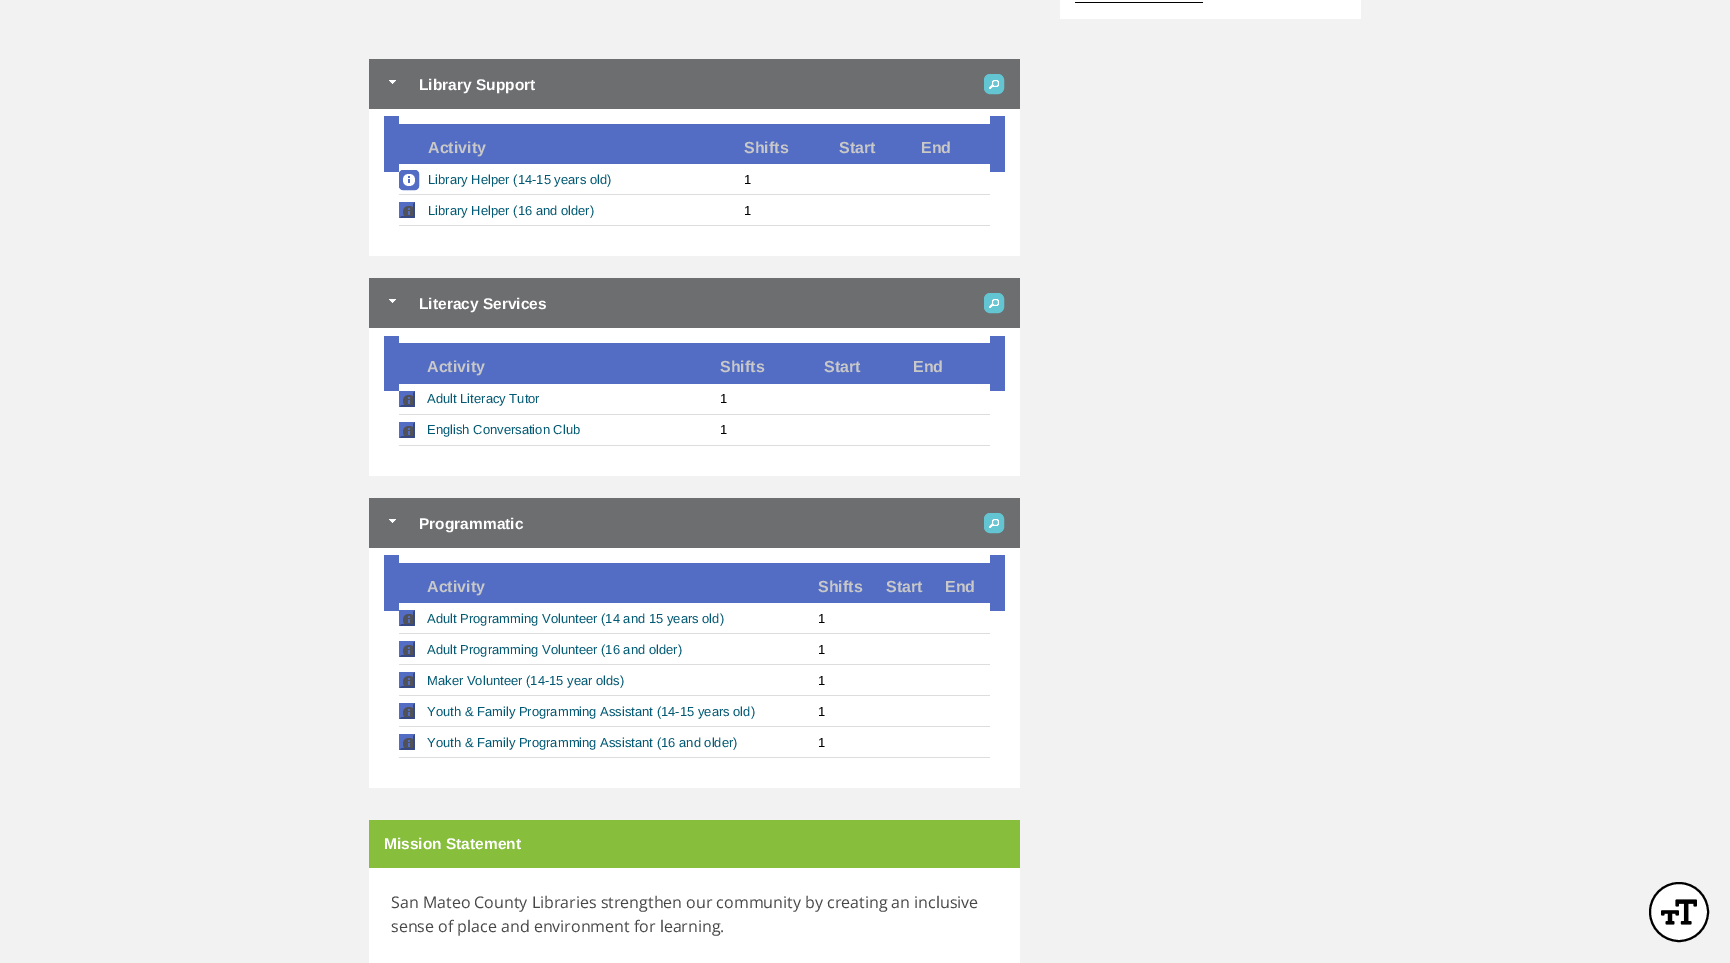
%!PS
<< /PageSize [1730 963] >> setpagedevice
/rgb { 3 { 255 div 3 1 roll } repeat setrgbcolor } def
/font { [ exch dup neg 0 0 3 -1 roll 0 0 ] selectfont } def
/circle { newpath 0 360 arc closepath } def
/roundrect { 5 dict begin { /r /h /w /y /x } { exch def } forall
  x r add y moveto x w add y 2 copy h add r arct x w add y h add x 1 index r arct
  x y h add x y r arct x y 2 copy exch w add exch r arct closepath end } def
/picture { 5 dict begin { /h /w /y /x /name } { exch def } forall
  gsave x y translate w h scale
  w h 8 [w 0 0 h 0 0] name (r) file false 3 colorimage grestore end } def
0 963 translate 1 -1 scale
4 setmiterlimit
242 242 242 rgb
0 0 1730 963 rectfill
[
  [1060 0 301 19 255 255 255]
  [1075 2 128 1 0 0 0]
  [369 109 651 147 255 255 255]
  [369 59 651 50 109 110 112]
] { aload pop rgb rectfill } forall
(img/1.rgb) 389 80 7 4 picture
99 196 210 rgb
984.5 74.5 19 19 5.5 roundrect gsave fill grestore
stroke
(img/2.rgb) 989 80 10 9 picture
[
  [399 124 591 40 83 109 196]
  [384 116 15 56 83 109 196]
  [990 116 15 56 83 109 196]
  [391 194 607 1 221 221 221]
  [391 194 8 1 255 255 255]
] { aload pop rgb rectfill } forall
83 109 196 rgb
399.5 170.5 19 19 3.5 roundrect gsave fill grestore
stroke
(img/3.rgb) 403 174 12 12 picture
[
  [990 194 8 1 255 255 255]
  [391 225 607 1 221 221 221]
  [391 225 8 1 255 255 255]
  [399 202 16 16 83 109 196]
] { aload pop rgb rectfill } forall
(img/4.rgb) 403 206 11 11 picture
55 73 131 rgb
415 202 moveto 415 218 lineto 413 216 lineto 413 204 lineto closepath fill
415 218 moveto 399 218 lineto 401 216 lineto 413 216 lineto closepath fill
83 109 196 rgb
399 218 moveto 399 202 lineto 401 204 lineto 401 216 lineto closepath fill
[
  [990 225 8 1 255 255 255]
  [369 328 651 148 255 255 255]
  [369 278 651 50 109 110 112]
] { aload pop rgb rectfill } forall
(img/1.rgb) 389 299 7 4 picture
99 196 210 rgb
984.5 293.5 19 19 5.5 roundrect gsave fill grestore
stroke
(img/2.rgb) 989 299 10 9 picture
[
  [399 343 591 41 83 109 196]
  [384 336 15 55 83 109 196]
  [990 336 15 55 83 109 196]
  [391 414 607 1 221 221 221]
  [391 414 8 1 255 255 255]
  [399 391 16 16 83 109 196]
] { aload pop rgb rectfill } forall
(img/4.rgb) 403 395 11 11 picture
55 73 131 rgb
415 391 moveto 415 407 lineto 413 405 lineto 413 393 lineto closepath fill
415 407 moveto 399 407 lineto 401 405 lineto 413 405 lineto closepath fill
83 109 196 rgb
399 407 moveto 399 391 lineto 401 393 lineto 401 405 lineto closepath fill
[
  [990 414 8 1 255 255 255]
  [391 445 607 1 221 221 221]
  [391 445 8 1 255 255 255]
  [399 422 16 16 83 109 196]
] { aload pop rgb rectfill } forall
(img/4.rgb) 403 426 11 11 picture
55 73 131 rgb
415 422 moveto 415 438 lineto 413 436 lineto 413 424 lineto closepath fill
415 438 moveto 399 438 lineto 401 436 lineto 413 436 lineto closepath fill
83 109 196 rgb
399 438 moveto 399 422 lineto 401 424 lineto 401 436 lineto closepath fill
[
  [990 445 8 1 255 255 255]
  [369 548 651 240 255 255 255]
  [369 498 651 50 109 110 112]
] { aload pop rgb rectfill } forall
(img/1.rgb) 389 519 7 4 picture
99 196 210 rgb
984.5 513.5 19 19 5.5 roundrect gsave fill grestore
stroke
(img/2.rgb) 989 519 10 9 picture
[
  [399 563 591 40 83 109 196]
  [384 555 15 56 83 109 196]
  [990 555 15 56 83 109 196]
  [391 633 607 1 221 221 221]
  [391 633 8 1 255 255 255]
  [399 610 16 16 83 109 196]
] { aload pop rgb rectfill } forall
(img/4.rgb) 403 614 11 11 picture
55 73 131 rgb
415 610 moveto 415 626 lineto 413 624 lineto 413 612 lineto closepath fill
415 626 moveto 399 626 lineto 401 624 lineto 413 624 lineto closepath fill
83 109 196 rgb
399 626 moveto 399 610 lineto 401 612 lineto 401 624 lineto closepath fill
[
  [990 633 8 1 255 255 255]
  [391 664 607 1 221 221 221]
  [391 664 8 1 255 255 255]
  [399 641 16 16 83 109 196]
] { aload pop rgb rectfill } forall
(img/4.rgb) 403 645 11 11 picture
55 73 131 rgb
415 641 moveto 415 657 lineto 413 655 lineto 413 643 lineto closepath fill
415 657 moveto 399 657 lineto 401 655 lineto 413 655 lineto closepath fill
83 109 196 rgb
399 657 moveto 399 641 lineto 401 643 lineto 401 655 lineto closepath fill
[
  [990 664 8 1 255 255 255]
  [391 695 607 1 221 221 221]
  [391 695 8 1 255 255 255]
  [399 672 16 16 83 109 196]
] { aload pop rgb rectfill } forall
(img/4.rgb) 403 676 11 11 picture
55 73 131 rgb
415 672 moveto 415 688 lineto 413 686 lineto 413 674 lineto closepath fill
415 688 moveto 399 688 lineto 401 686 lineto 413 686 lineto closepath fill
83 109 196 rgb
399 688 moveto 399 672 lineto 401 674 lineto 401 686 lineto closepath fill
[
  [990 695 8 1 255 255 255]
  [391 726 607 1 221 221 221]
  [391 726 8 1 255 255 255]
  [399 703 16 16 83 109 196]
] { aload pop rgb rectfill } forall
(img/4.rgb) 403 707 11 11 picture
55 73 131 rgb
415 703 moveto 415 719 lineto 413 717 lineto 413 705 lineto closepath fill
415 719 moveto 399 719 lineto 401 717 lineto 413 717 lineto closepath fill
83 109 196 rgb
399 719 moveto 399 703 lineto 401 705 lineto 401 717 lineto closepath fill
[
  [990 726 8 1 255 255 255]
  [391 757 607 1 221 221 221]
  [391 757 8 1 255 255 255]
  [399 734 16 16 83 109 196]
] { aload pop rgb rectfill } forall
(img/4.rgb) 403 738 11 11 picture
55 73 131 rgb
415 734 moveto 415 750 lineto 413 748 lineto 413 736 lineto closepath fill
415 750 moveto 399 750 lineto 401 748 lineto 413 748 lineto closepath fill
83 109 196 rgb
399 750 moveto 399 734 lineto 401 736 lineto 401 748 lineto closepath fill
[
  [990 757 8 1 255 255 255]
  [369 820 651 48 135 190 60]
  [369 868 651 95 255 255 255]
] { aload pop rgb rectfill } forall
1679 912 29 circle gsave fill grestore
0 0 0 rgb
2 setlinewidth
stroke
(img/5.rgb) 1661 899 36 26 picture
/LiberationSans-Bold 15.5 font
255 255 255 rgb
419 90 moveto (Library Support) show
/LiberationSans-Bold 16 font
201 200 200 rgb
[
  [(Activity) 428 153]
  [(Shifts) 744 153]
  [(Start) 839 153]
  [(End) 921 153]
] { aload pop moveto show } forall
/LiberationSans-Regular 13 font
1 89 115 rgb
428 184 moveto (Library Helper \(14-15 years old\)) show
0 0 0 rgb
744 184 moveto (1) show
1 89 115 rgb
428 215 moveto (Library Helper \(16 and older\)) show
0 0 0 rgb
744 215 moveto (1) show
/LiberationSans-Bold 15.5 font
255 255 255 rgb
419 309 moveto (Literacy Services) show
/LiberationSans-Bold 16 font
201 200 200 rgb
[
  [(Activity) 427 372]
  [(Shifts) 720 372]
  [(Start) 824 372]
  [(End) 913 372]
] { aload pop moveto show } forall
/LiberationSans-Regular 13 font
1 89 115 rgb
427 403 moveto (Adult Literacy Tutor) show
0 0 0 rgb
720 403 moveto (1) show
1 89 115 rgb
427 434 moveto (English Conversation Club) show
0 0 0 rgb
720 434 moveto (1) show
/LiberationSans-Bold 15.5 font
255 255 255 rgb
419 529 moveto (Programmatic) show
/LiberationSans-Bold 16 font
201 200 200 rgb
[
  [(Activity) 427 592]
  [(Shifts) 818 592]
  [(Start) 886 592]
  [(End) 945 592]
] { aload pop moveto show } forall
/LiberationSans-Regular 13 font
1 89 115 rgb
427 623 moveto (Adult Programming Volunteer \(14 and 15 years old\)) show
0 0 0 rgb
818 623 moveto (1) show
1 89 115 rgb
427 654 moveto (Adult Programming Volunteer \(16 and older\)) show
0 0 0 rgb
818 654 moveto (1) show
1 89 115 rgb
427 685 moveto (Maker Volunteer \(14-15 year olds\)) show
0 0 0 rgb
818 685 moveto (1) show
1 89 115 rgb
427 716 moveto (Youth & Family Programming Assistant \(14-15 years old\)) show
0 0 0 rgb
818 716 moveto (1) show
1 89 115 rgb
427 747 moveto (Youth & Family Programming Assistant \(16 and older\)) show
0 0 0 rgb
818 747 moveto (1) show
/LiberationSans-Bold 15.5 font
255 255 255 rgb
384 849 moveto (Mission Statement) show
/OpenSans-Regular 16 font
71 71 71 rgb
391 908 moveto (San Mateo County Libraries strengthen our community by creating an inclusive) show
391 932 moveto (sense of place and environment for learning.) show
showpage
